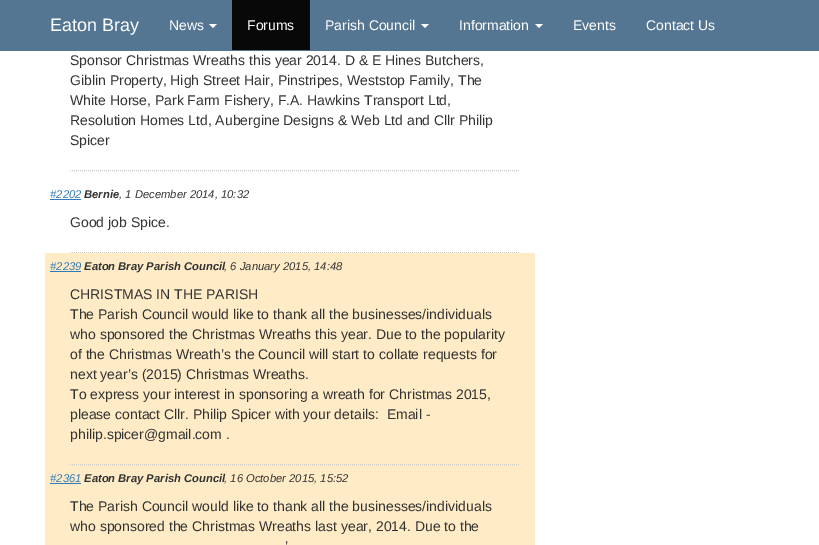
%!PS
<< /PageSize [819 545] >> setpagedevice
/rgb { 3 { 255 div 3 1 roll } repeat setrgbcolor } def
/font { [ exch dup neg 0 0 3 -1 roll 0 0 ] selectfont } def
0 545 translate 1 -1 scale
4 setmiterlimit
255 255 255 rgb
0 0 819 545 rectfill
84 118 147 rgb
0 0 819 51 rectfill
255 255 255 rgb
209 24 moveto 217 24 lineto 213 28 lineto closepath fill
8 8 8 rgb
232 0 78 50 rectfill
255 255 255 rgb
421 24 moveto 429 24 lineto 425 28 lineto closepath fill
535 24 moveto 543 24 lineto 539 28 lineto closepath fill
204 204 204 rgb
[1 1] 0 setdash
70 170.5 moveto 520 170.5 lineto stroke
51 122 183 rgb
50 199 31 1 rectfill
204 204 204 rgb
70 252.5 moveto 520 252.5 lineto stroke
255 236 199 rgb
45 253 490 292 rectfill
51 122 183 rgb
50 271 31 1 rectfill
204 204 204 rgb
70 464.5 moveto 520 464.5 lineto stroke
51 122 183 rgb
50 483 31 1 rectfill
/LiberationSans-Regular 18 font
255 255 255 rgb
50 31 moveto (Eaton Bray) show
/LiberationSans-Regular 14 font
[
  [(News) 169 30]
  [(Forums) 247 30]
  [(Parish Council) 325 30]
  [(Information) 459 30]
  [(Events) 573 30]
  [(Contact Us) 646 30]
] { aload pop moveto show } forall
51 51 51 rgb
[
  [(Sponsor Christmas Wreaths this year 2014. D & E Hines Butchers,) 70 65]
  [(Giblin Property, High Street Hair, Pinstripes, Weststop Family, The) 70 85]
  [(White Horse, Park Farm Fishery, F.A. Hawkins Transport Ltd,) 70 105]
  [(Resolution Homes Ltd, Aubergine Designs & Web Ltd and Cllr Philip) 70 125]
  [(Spicer) 70 145]
] { aload pop moveto show } forall
/LiberationSans-Italic 11.25 font
51 122 183 rgb
50 198 moveto (#2202) show
/LiberationSans-BoldItalic 11.25 font
51 51 51 rgb
84 198 moveto (Bernie) show
/LiberationSans-Italic 11.25 font
119 198 moveto (, 1 December 2014, 10:32) show
/LiberationSans-Regular 14 font
70 227 moveto (Good job Spice.) show
/LiberationSans-Italic 11.25 font
51 122 183 rgb
50 270 moveto (#2239) show
/LiberationSans-BoldItalic 11.25 font
51 51 51 rgb
84 270 moveto (Eaton Bray Parish Council) show
/LiberationSans-Italic 11.25 font
224 270 moveto (, 6 January 2015, 14:48) show
/LiberationSans-Regular 14 font
[
  [(CHRISTMAS IN THE PARISH) 70 299]
  [(The Parish Council would like to thank all the businesses/individuals) 70 319]
  [(who sponsored the Christmas Wreaths this year. Due to the popularity) 70 339]
  [(of the Christmas Wreath’s the Council will start to collate requests for) 70 359]
  [(next year’s \(2015\) Christmas Wreaths.) 70 379]
  [(To express your interest in sponsoring a wreath for Christmas 2015,) 70 399]
  [(please contact Cllr. Philip Spicer with your details:  Email -) 70 419]
  [(philip.spicer@gmail.com .) 70 439]
] { aload pop moveto show } forall
/LiberationSans-Italic 11.25 font
51 122 183 rgb
50 482 moveto (#2361) show
/LiberationSans-BoldItalic 11.25 font
51 51 51 rgb
84 482 moveto (Eaton Bray Parish Council) show
/LiberationSans-Italic 11.25 font
224 482 moveto (, 16 October 2015, 15:52) show
/LiberationSans-Regular 14 font
[
  [(The Parish Council would like to thank all the businesses/individuals) 70 511]
  [(who sponsored the Christmas Wreaths last year, 2014. Due to the) 70 531]
  [(’) 285 551]
] { aload pop moveto show } forall
showpage
